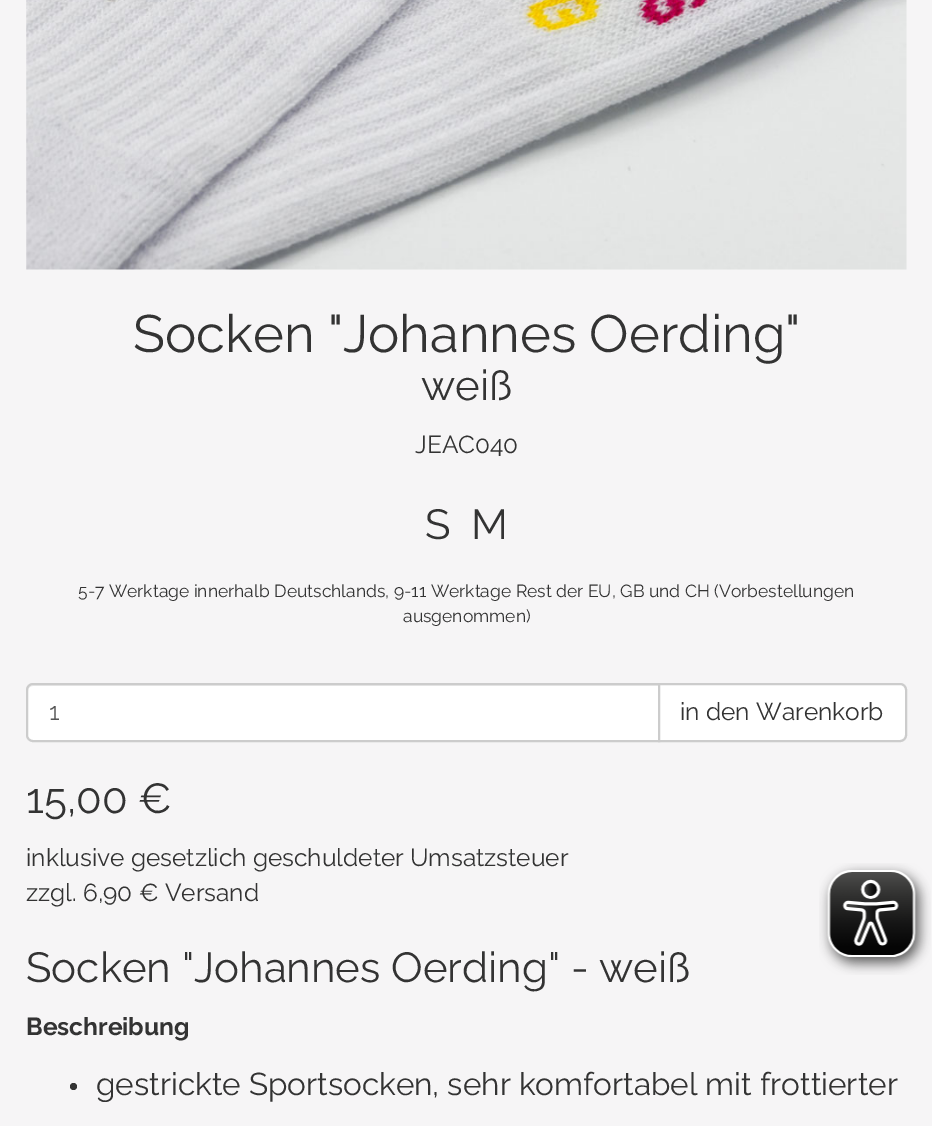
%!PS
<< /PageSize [932 1126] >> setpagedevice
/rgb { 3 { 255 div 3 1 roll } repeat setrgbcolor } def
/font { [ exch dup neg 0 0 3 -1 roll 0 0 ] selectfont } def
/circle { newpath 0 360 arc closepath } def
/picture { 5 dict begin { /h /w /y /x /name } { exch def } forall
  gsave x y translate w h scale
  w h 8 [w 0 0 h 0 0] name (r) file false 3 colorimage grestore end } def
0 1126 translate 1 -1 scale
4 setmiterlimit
246 245 246 rgb
0 0 932 1126 rectfill
(img/1.rgb) 26 0 881 270 picture
255 255 255 rgb
33 683 moveto 660 683 lineto 660 742 lineto 33 742 lineto 29 742 26 739 26 735 curveto 26 690 lineto 26 686 29 683 33 683 curveto closepath fill
236 236 236 rgb
33 686 moveto 658 686 lineto 658 684 lineto 33 684 lineto 30 684 28 686 28 689 curveto 28 691 lineto 28 688 30 686 33 686 curveto closepath fill
204 204 204 rgb
2 setlinewidth
33 684 moveto 659 684 lineto 659 741 lineto 33 741 lineto 29.5 741 27 738.5 27 735 curveto 27 690 lineto 27 686.5 29.5 684 33 684 curveto closepath stroke
255 255 255 rgb
659 684 moveto 900 684 lineto 903.5 684 906 686.5 906 690 curveto 906 735 lineto 906 738.5 903.5 741 900 741 curveto 659 741 lineto closepath gsave fill grestore
204 204 204 rgb
stroke
51 51 51 rgb
73.5 1086.5 3.5 circle fill
(img/2.rgb) 819 863 112 112 picture
/Raleway-Regular 52.5 font
133 352 moveto (Socken "Johannes Oerding") show
/Raleway-Regular 42 font
421 400 moveto (weiß) show
/Raleway-Regular 24.5 font
415 453 moveto (JEAC040) show
/Raleway-Regular 42 font
425 539 moveto (S) show
471 539 moveto (M) show
/Raleway-Regular 17.5 font
78 597 moveto (5-7 Werktage innerhalb Deutschlands, 9-11 Werktage Rest der EU, GB und CH \(Vorbestellungen) show
403 622 moveto (ausgenommen\)) show
/Raleway-Regular 24.5 font
85 85 85 rgb
49 720 moveto (1) show
51 51 51 rgb
680 720 moveto (in den Warenkorb) show
/Raleway-Regular 42 font
26 813 moveto (15,00 €) show
/Raleway-Regular 24.5 font
26 866 moveto (inklusive gesetzlich geschuldeter Umsatzsteuer) show
26 901 moveto (zzgl. 6,90 € Versand) show
/Raleway-Regular 42 font
26 982 moveto (Socken "Johannes Oerding" - weiß) show
/Raleway-Bold 24.5 font
26 1035 moveto (Beschreibung) show
/Raleway-Regular 31.5 font
96 1095 moveto (gestrickte Sportsocken, sehr komfortabel mit frottierter) show
showpage
